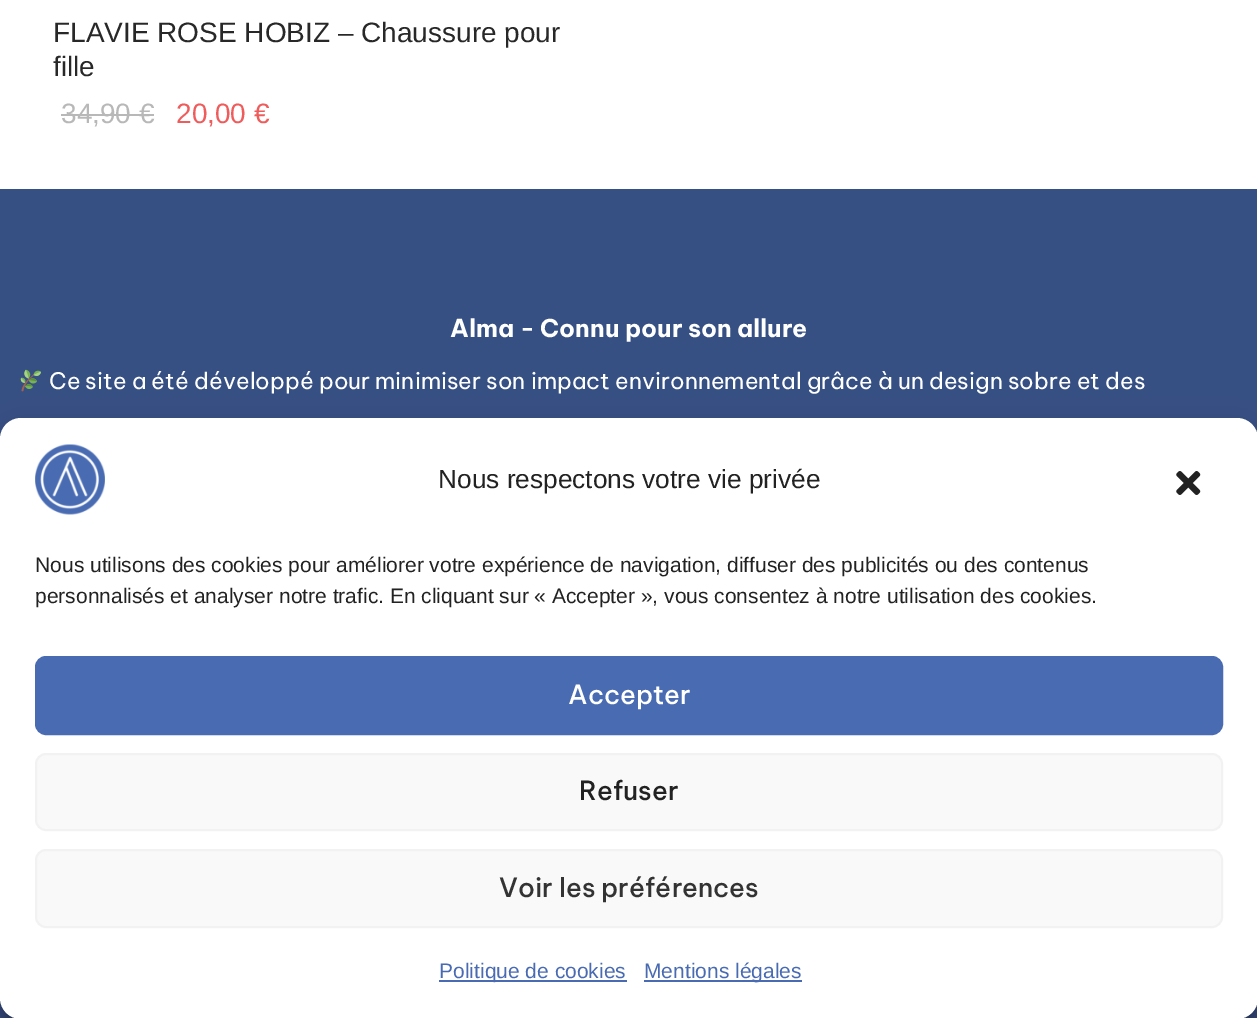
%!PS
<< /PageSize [1257 1018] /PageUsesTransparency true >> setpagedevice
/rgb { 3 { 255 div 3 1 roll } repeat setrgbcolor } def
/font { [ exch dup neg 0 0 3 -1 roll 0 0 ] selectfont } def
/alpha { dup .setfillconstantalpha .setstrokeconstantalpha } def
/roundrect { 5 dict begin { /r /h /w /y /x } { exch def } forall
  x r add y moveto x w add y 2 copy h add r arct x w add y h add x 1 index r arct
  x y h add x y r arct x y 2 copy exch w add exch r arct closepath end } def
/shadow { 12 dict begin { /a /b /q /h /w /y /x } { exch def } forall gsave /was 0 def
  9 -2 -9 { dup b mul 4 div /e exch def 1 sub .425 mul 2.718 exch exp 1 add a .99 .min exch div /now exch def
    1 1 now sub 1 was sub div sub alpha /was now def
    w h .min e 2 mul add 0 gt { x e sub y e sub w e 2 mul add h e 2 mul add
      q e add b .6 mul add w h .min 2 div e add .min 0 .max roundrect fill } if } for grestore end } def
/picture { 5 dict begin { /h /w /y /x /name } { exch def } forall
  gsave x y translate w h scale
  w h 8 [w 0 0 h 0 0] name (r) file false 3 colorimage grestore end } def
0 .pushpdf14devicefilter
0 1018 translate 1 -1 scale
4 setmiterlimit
255 255 255 rgb
0 0 1257 1018 rectfill
184 184 184 rgb
61 114 93 2 rectfill
55 80 132 rgb
0 189 1257 829 rectfill
(img/1.rgb) 20 369 21 23 picture
0 0 0 rgb
0 429 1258 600 21 5 0.23 shadow
0 436 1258 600 21 17.5 0.19 shadow
255 255 255 rgb
0 418 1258 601 21 roundrect fill
(img/2.rgb) 35 444 70 71 picture
(img/3.rgb) 1176 471 25 24 picture
73 107 178 rgb
36 657 1186 77 10 roundrect gsave fill grestore
2 setlinewidth
stroke
249 249 249 rgb
36 754 1186 76 10 roundrect gsave fill grestore
242 242 242 rgb
stroke
249 249 249 rgb
36 850 1186 77 10 roundrect gsave fill grestore
242 242 242 rgb
stroke
73 107 178 rgb
439 980 188 2 rectfill
644 980 158 2 rectfill
/LiberationSans-Regular 28 font
40 40 40 rgb
53 42 moveto (FLAVIE ROSE HOBIZ – Chaussure pour) show
53 76 moveto (fille) show
184 184 184 rgb
61 123 moveto (34,90 €) show
239 92 92 rgb
176 123 moveto (20,00 €) show
/BeVietnamPro-Bold 24.5 font
255 255 255 rgb
450 337 moveto (Alma - Connu pour son allure) show
/BeVietnamPro-Regular 22.75 font
49 389 moveto (Ce site a été développé pour minimiser son impact environnemental grâce à un design sobre et des) show
/LiberationSans-Regular 26.25 font
34 34 34 rgb
438 488 moveto (Nous respectons votre vie privée) show
/LiberationSans-Regular 21 font
35 572 moveto (Nous utilisons des cookies pour améliorer votre expérience de navigation, diffuser des publicités ou des contenus) show
35 603 moveto (personnalisés et analyser notre trafic. En cliquant sur « Accepter », vous consentez à notre utilisation des cookies.) show
/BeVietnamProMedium-Medium 26.25 font
255 255 255 rgb
568 704 moveto (Accepter) show
34 34 34 rgb
579 800 moveto (Refuser) show
51 51 51 rgb
499 897 moveto (Voir les préférences) show
/LiberationSans-Regular 21 font
73 107 178 rgb
439 978 moveto (Politique de cookies) show
644 978 moveto (Mentions légales) show
.poppdf14devicefilter showpage
